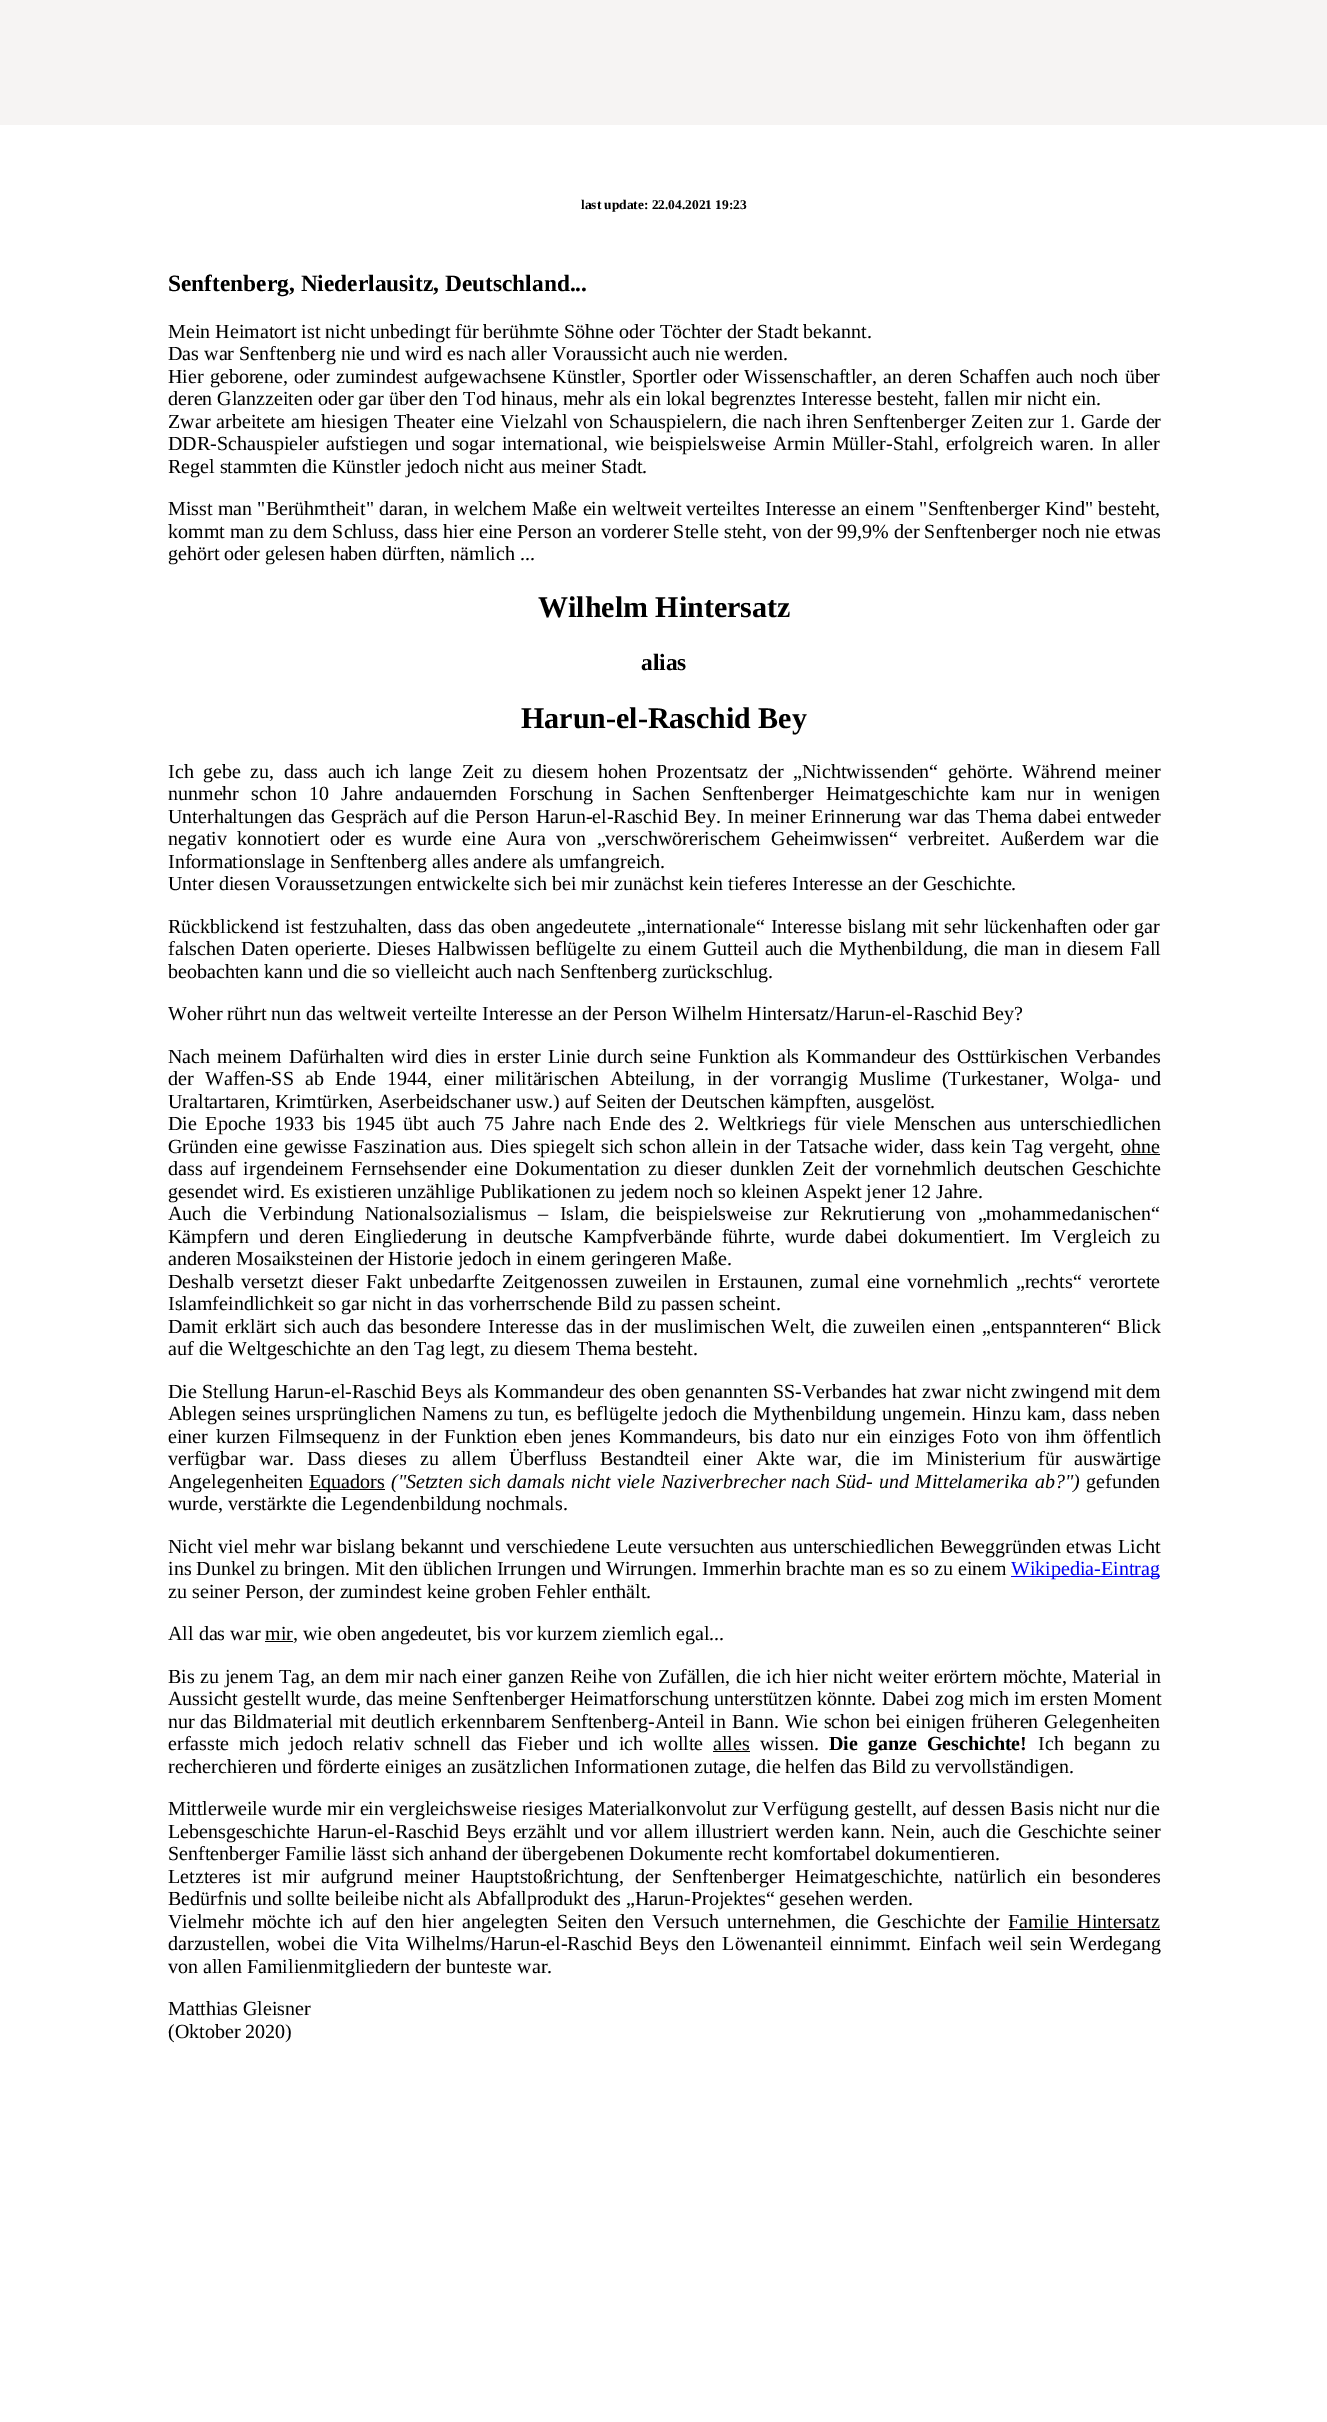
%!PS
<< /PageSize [1327 2422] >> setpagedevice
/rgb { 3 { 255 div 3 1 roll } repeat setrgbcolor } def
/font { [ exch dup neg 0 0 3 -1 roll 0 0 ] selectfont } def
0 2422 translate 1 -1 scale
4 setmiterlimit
255 255 255 rgb
0 0 1327 2422 rectfill
[
  [0 0 1327 125 246 244 243]
  [1121 1154 39 1 0 0 0]
  [309 1489 76 1 0 0 0]
  [1011 1576 149 1 0 0 238]
  [265 1641 28 1 0 0 0]
  [713 1751 37 1 0 0 0]
  [1009 1929 151 1 0 0 0]
] { aload pop rgb rectfill } forall
/LiberationSerif-Bold 13.4 font
581 209 moveto (last update: 22.04.2021 19:23) show
/LiberationSerif-Bold 23.4 font
168 291 moveto (Senftenberg, Niederlausitz, Deutschland...) show
/LiberationSerif-Regular 20 font
168 338 moveto (Mein Heimatort ist nicht unbedingt für berühmte Söhne oder Töchter der Stadt bekannt.) show
168 360 moveto (Das war Senftenberg nie und wird es nach aller Voraussicht auch nie werden.) show
168 383 moveto 1.1 0 32 (Hier geborene, oder zumindest aufgewachsene Künstler, Sportler oder Wissenschaftler, an deren Schaffen auch noch über) widthshow
168 405 moveto (deren Glanzzeiten oder gar über den Tod hinaus, mehr als ein lokal begrenztes Interesse besteht, fallen mir nicht ein.) show
168 428 moveto 0.9 0 32 (Zwar arbeitete am hiesigen Theater eine Vielzahl von Schauspielern, die nach ihren Senftenberger Zeiten zur 1. Garde der) widthshow
168 450 moveto 1.8 0 32 (DDR-Schauspieler aufstiegen und sogar international, wie beispielsweise Armin Müller-Stahl, erfolgreich waren. In aller) widthshow
168 473 moveto (Regel stammten die Künstler jedoch nicht aus meiner Stadt.) show
168 515 moveto 0.25 0 32 (Misst man "Berühmtheit" daran, in welchem Maße ein weltweit verteiltes Interesse an einem "Senftenberger Kind" besteht,) widthshow
168 538 moveto (kommt man zu dem Schluss, dass hier eine Person an vorderer Stelle steht, von der 99,9% der Senftenberger noch nie etwas) show
168 560 moveto (gehört oder gelesen haben dürften, nämlich ...) show
/LiberationSerif-Bold 30 font
538 617 moveto (Wilhelm Hintersatz) show
/LiberationSerif-Bold 23.4 font
641 670 moveto (alias) show
/LiberationSerif-Bold 30 font
521 728 moveto (Harun-el-Raschid Bey) show
/LiberationSerif-Regular 20 font
168 778 moveto 4.5 0 32 (Ich gebe zu, dass auch ich lange Zeit zu diesem hohen Prozentsatz der „Nichtwissenden“ gehörte. Während meiner) widthshow
168 800 moveto 6.75 0 32 (nunmehr schon 10 Jahre andauernden Forschung in Sachen Senftenberger Heimatgeschichte kam nur in wenigen) widthshow
168 823 moveto 1.1 0 32 (Unterhaltungen das Gespräch auf die Person Harun-el-Raschid Bey. In meiner Erinnerung war das Thema dabei entweder) widthshow
168 845 moveto 5.25 0 32 (negativ konnotiert oder es wurde eine Aura von „verschwörerischem Geheimwissen“ verbreitet. Außerdem war die) widthshow
168 868 moveto (Informationslage in Senftenberg alles andere als umfangreich.) show
168 890 moveto (Unter diesen Voraussetzungen entwickelte sich bei mir zunächst kein tieferes Interesse an der Geschichte.) show
168 933 moveto 1 0 32 (Rückblickend ist festzuhalten, dass das oben angedeutete „internationale“ Interesse bislang mit sehr lückenhaften oder gar) widthshow
168 955 moveto 1.25 0 32 (falschen Daten operierte. Dieses Halbwissen beflügelte zu einem Gutteil auch die Mythenbildung, die man in diesem Fall) widthshow
168 978 moveto (beobachten kann und die so vielleicht auch nach Senftenberg zurückschlug.) show
168 1020 moveto (Woher rührt nun das weltweit verteilte Interesse an der Person Wilhelm Hintersatz/Harun-el-Raschid Bey?) show
168 1063 moveto 2 0 32 (Nach meinem Dafürhalten wird dies in erster Linie durch seine Funktion als Kommandeur des Osttürkischen Verbandes) widthshow
168 1085 moveto 6.25 0 32 (der Waffen-SS ab Ende 1944, einer militärischen Abteilung, in der vorrangig Muslime \(Turkestaner, Wolga- und) widthshow
168 1108 moveto (Uraltartaren, Krimtürken, Aserbeidschaner usw.\) auf Seiten der Deutschen kämpften, ausgelöst.) show
168 1130 moveto 3.6 0 32 (Die Epoche 1933 bis 1945 übt auch 75 Jahre nach Ende des 2. Weltkriegs für viele Menschen aus unterschiedlichen) widthshow
168 1153 moveto 1.25 0 32 (Gründen eine gewisse Faszination aus. Dies spiegelt sich schon allein in der Tatsache wider, dass kein Tag vergeht,) widthshow
1121 1153 moveto (ohne) show
168 1175 moveto 2.75 0 32 (dass auf irgendeinem Fernsehsender eine Dokumentation zu dieser dunklen Zeit der vornehmlich deutschen Geschichte) widthshow
168 1198 moveto (gesendet wird. Es existieren unzählige Publikationen zu jedem noch so kleinen Aspekt jener 12 Jahre.) show
168 1220 moveto 6.25 0 32 (Auch die Verbindung Nationalsozialismus – Islam, die beispielsweise zur Rekrutierung von „mohammedanischen“) widthshow
168 1243 moveto 5.1 0 32 (Kämpfern und deren Eingliederung in deutsche Kampfverbände führte, wurde dabei dokumentiert. Im Vergleich zu) widthshow
168 1265 moveto (anderen Mosaiksteinen der Historie jedoch in einem geringeren Maße.) show
168 1288 moveto 2.5 0 32 (Deshalb versetzt dieser Fakt unbedarfte Zeitgenossen zuweilen in Erstaunen, zumal eine vornehmlich „rechts“ verortete) widthshow
168 1310 moveto (Islamfeindlichkeit so gar nicht in das vorherrschende Bild zu passen scheint.) show
168 1333 moveto 1.7 0 32 (Damit erklärt sich auch das besondere Interesse das in der muslimischen Welt, die zuweilen einen „entspannteren“ Blick) widthshow
168 1355 moveto (auf die Weltgeschichte an den Tag legt, zu diesem Thema besteht.) show
168 1398 moveto 0.25 0 32 (Die Stellung Harun-el-Raschid Beys als Kommandeur des oben genannten SS-Verbandes hat zwar nicht zwingend mit dem) widthshow
168 1420 moveto 0.9 0 32 (Ablegen seines ursprünglichen Namens zu tun, es beflügelte jedoch die Mythenbildung ungemein. Hinzu kam, dass neben) widthshow
168 1443 moveto 2.75 0 32 (einer kurzen Filmsequenz in der Funktion eben jenes Kommandeurs, bis dato nur ein einziges Foto von ihm öffentlich) widthshow
168 1465 moveto 7.9 0 32 (verfügbar war. Dass dieses zu allem Überfluss Bestandteil einer Akte war, die im Ministerium für auswärtige) widthshow
168 1488 moveto (Angelegenheiten) show
309 1488 moveto (Equadors) show
/LiberationSerif-Italic 20 font
391 1488 moveto 1.1 0 32 (\("Setzten sich damals nicht viele Naziverbrecher nach Süd- und Mittelamerika ab?"\)) widthshow
/LiberationSerif-Regular 20 font
1086 1488 moveto (gefunden) show
168 1510 moveto (wurde, verstärkte die Legendenbildung nochmals.) show
168 1553 moveto 0.9 0 32 (Nicht viel mehr war bislang bekannt und verschiedene Leute versuchten aus unterschiedlichen Beweggründen etwas Licht) widthshow
168 1575 moveto (ins Dunkel zu bringen. Mit den üblichen Irrungen und Wirrungen. Immerhin brachte man es so zu einem) show
0 0 238 rgb
1011 1575 moveto (Wikipedia-Eintrag) show
0 0 0 rgb
168 1598 moveto (zu seiner Person, der zumindest keine groben Fehler enthält.) show
168 1640 moveto (All das war mir, wie oben angedeutet, bis vor kurzem ziemlich egal...) show
168 1683 moveto 0.6 0 32 (Bis zu jenem Tag, an dem mir nach einer ganzen Reihe von Zufällen, die ich hier nicht weiter erörtern möchte, Material in) widthshow
168 1705 moveto 0.25 0 32 (Aussicht gestellt wurde, das meine Senftenberger Heimatforschung unterstützen könnte. Dabei zog mich im ersten Moment) widthshow
168 1728 moveto 0.75 0 32 (nur das Bildmaterial mit deutlich erkennbarem Senftenberg-Anteil in Bann. Wie schon bei einigen früheren Gelegenheiten) widthshow
168 1750 moveto 5.1 0 32 (erfasste mich jedoch relativ schnell das Fieber und ich wollte) widthshow
713 1750 moveto (alles) show
760 1750 moveto (wissen.) show
/LiberationSerif-Bold 20 font
829 1750 moveto 5.1 0 32 (Die ganze Geschichte!) widthshow
/LiberationSerif-Regular 20 font
1038 1750 moveto 5.1 0 32 (Ich begann zu) widthshow
168 1773 moveto (recherchieren und förderte einiges an zusätzlichen Informationen zutage, die helfen das Bild zu vervollständigen.) show
168 1815 moveto (Mittlerweile wurde mir ein vergleichsweise riesiges Materialkonvolut zur Verfügung gestellt, auf dessen Basis nicht nur die) show
168 1838 moveto 1.75 0 32 (Lebensgeschichte Harun-el-Raschid Beys erzählt und vor allem illustriert werden kann. Nein, auch die Geschichte seiner) widthshow
168 1860 moveto (Senftenberger Familie lässt sich anhand der übergebenen Dokumente recht komfortabel dokumentieren.) show
168 1883 moveto 6 0 32 (Letzteres ist mir aufgrund meiner Hauptstoßrichtung, der Senftenberger Heimatgeschichte, natürlich ein besonderes) widthshow
168 1905 moveto (Bedürfnis und sollte beileibe nicht als Abfallprodukt des „Harun-Projektes“ gesehen werden.) show
168 1928 moveto 3.25 0 32 (Vielmehr möchte ich auf den hier angelegten Seiten den Versuch unternehmen, die Geschichte der) widthshow
1008 1928 moveto 3.25 0 32 (Familie Hintersatz) widthshow
168 1950 moveto 2.25 0 32 (darzustellen, wobei die Vita Wilhelms/Harun-el-Raschid Beys den Löwenanteil einnimmt. Einfach weil sein Werdegang) widthshow
[
  [(von allen Familienmitgliedern der bunteste war.) 168 1973]
  [(Matthias Gleisner) 168 2015]
  [(\(Oktober 2020\)) 168 2038]
] { aload pop moveto show } forall
showpage
